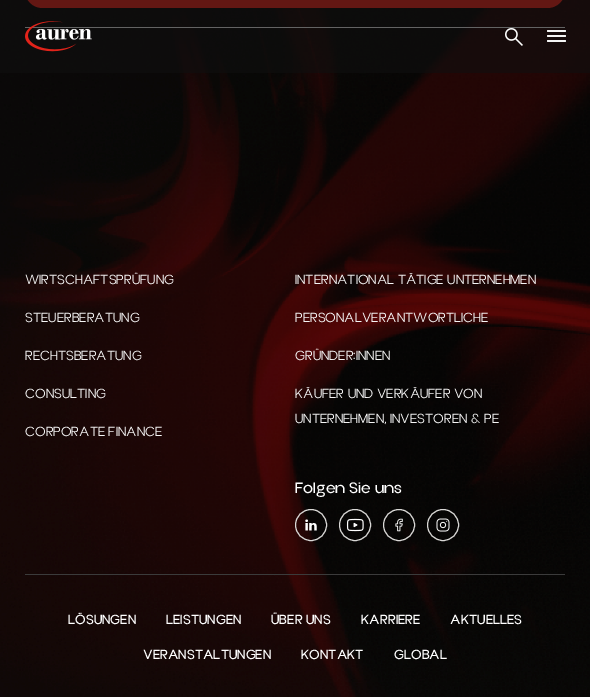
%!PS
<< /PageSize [590 697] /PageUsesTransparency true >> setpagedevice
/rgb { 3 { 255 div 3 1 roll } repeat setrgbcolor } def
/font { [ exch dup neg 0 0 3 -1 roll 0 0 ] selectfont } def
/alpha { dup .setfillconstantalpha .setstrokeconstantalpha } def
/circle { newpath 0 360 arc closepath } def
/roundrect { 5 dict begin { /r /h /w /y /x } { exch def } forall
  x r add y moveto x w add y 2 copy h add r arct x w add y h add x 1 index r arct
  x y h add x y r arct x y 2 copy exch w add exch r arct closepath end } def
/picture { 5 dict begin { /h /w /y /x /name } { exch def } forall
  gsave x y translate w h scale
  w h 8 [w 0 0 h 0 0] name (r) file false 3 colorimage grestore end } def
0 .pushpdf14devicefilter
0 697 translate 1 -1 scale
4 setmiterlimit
255 255 255 rgb
0 0 590 697 rectfill
(img/3.rgb) 0 0 590 697 picture
225 225 225 rgb
25 27 540 1 rectfill
226 35 26 rgb
25 -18 540 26 17.5 roundrect fill
0.6 alpha
15 15 15 rgb
0 0 590 73 rectfill
1 alpha
(img/1.rgb) 25 21 67 31 picture
(img/2.rgb) 505 28 18 18 picture
245 245 245 rgb
547 30 19 2 1 roundrect fill
547 35 19 2 1 roundrect fill
547 40 19 2 1 roundrect fill
(img/4.rgb) 305 519 12 12 picture
217 216 214 rgb
311 525 15.5 circle stroke
(img/5.rgb) 346 518 18 14 picture
355 525 15.5 circle stroke
(img/6.rgb) 395 518 8 14 picture
399 525 15.5 circle stroke
(img/7.rgb) 436 518 14 14 picture
443 525 15.5 circle stroke
59 59 59 rgb
25 574 540 1 rectfill
/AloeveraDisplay-Light 14 font
245 245 245 rgb
[
  [(WIRTSCHAFTSPRÜFUNG) 25 284]
  [(STEUERBERATUNG) 25 322]
  [(RECHTSBERATUNG) 25 360]
  [(CONSULTING) 25 398]
  [(CORPORATE FINANCE) 25 436]
  [(INTERNATIONAL TÄTIGE UNTERNEHMEN) 295 284]
  [(PERSONALVERANTWORTLICHE) 295 322]
  [(GRÜNDER:INNEN) 295 360]
  [(KÄUFER UND VERKÄUFER VON) 295 398]
  [(UNTERNEHMEN, INVESTOREN & PE) 295 423]
] { aload pop moveto show } forall
/AloeveraDisplay-Regular 16 font
255 255 255 rgb
295 493 moveto (Folgen Sie uns) show
/AloeveraDisplay-Regular 14 font
[
  [(LÖSUNGEN) 68 624]
  [(LEISTUNGEN) 166 624]
  [(ÜBER UNS) 271 624]
  [(KARRIERE) 361 624]
  [(AKTUELLES) 450 624]
  [(VERANSTALTUNGEN) 143 659]
  [(KONTAKT) 301 659]
  [(GLOBAL) 394 659]
] { aload pop moveto show } forall
.poppdf14devicefilter showpage
